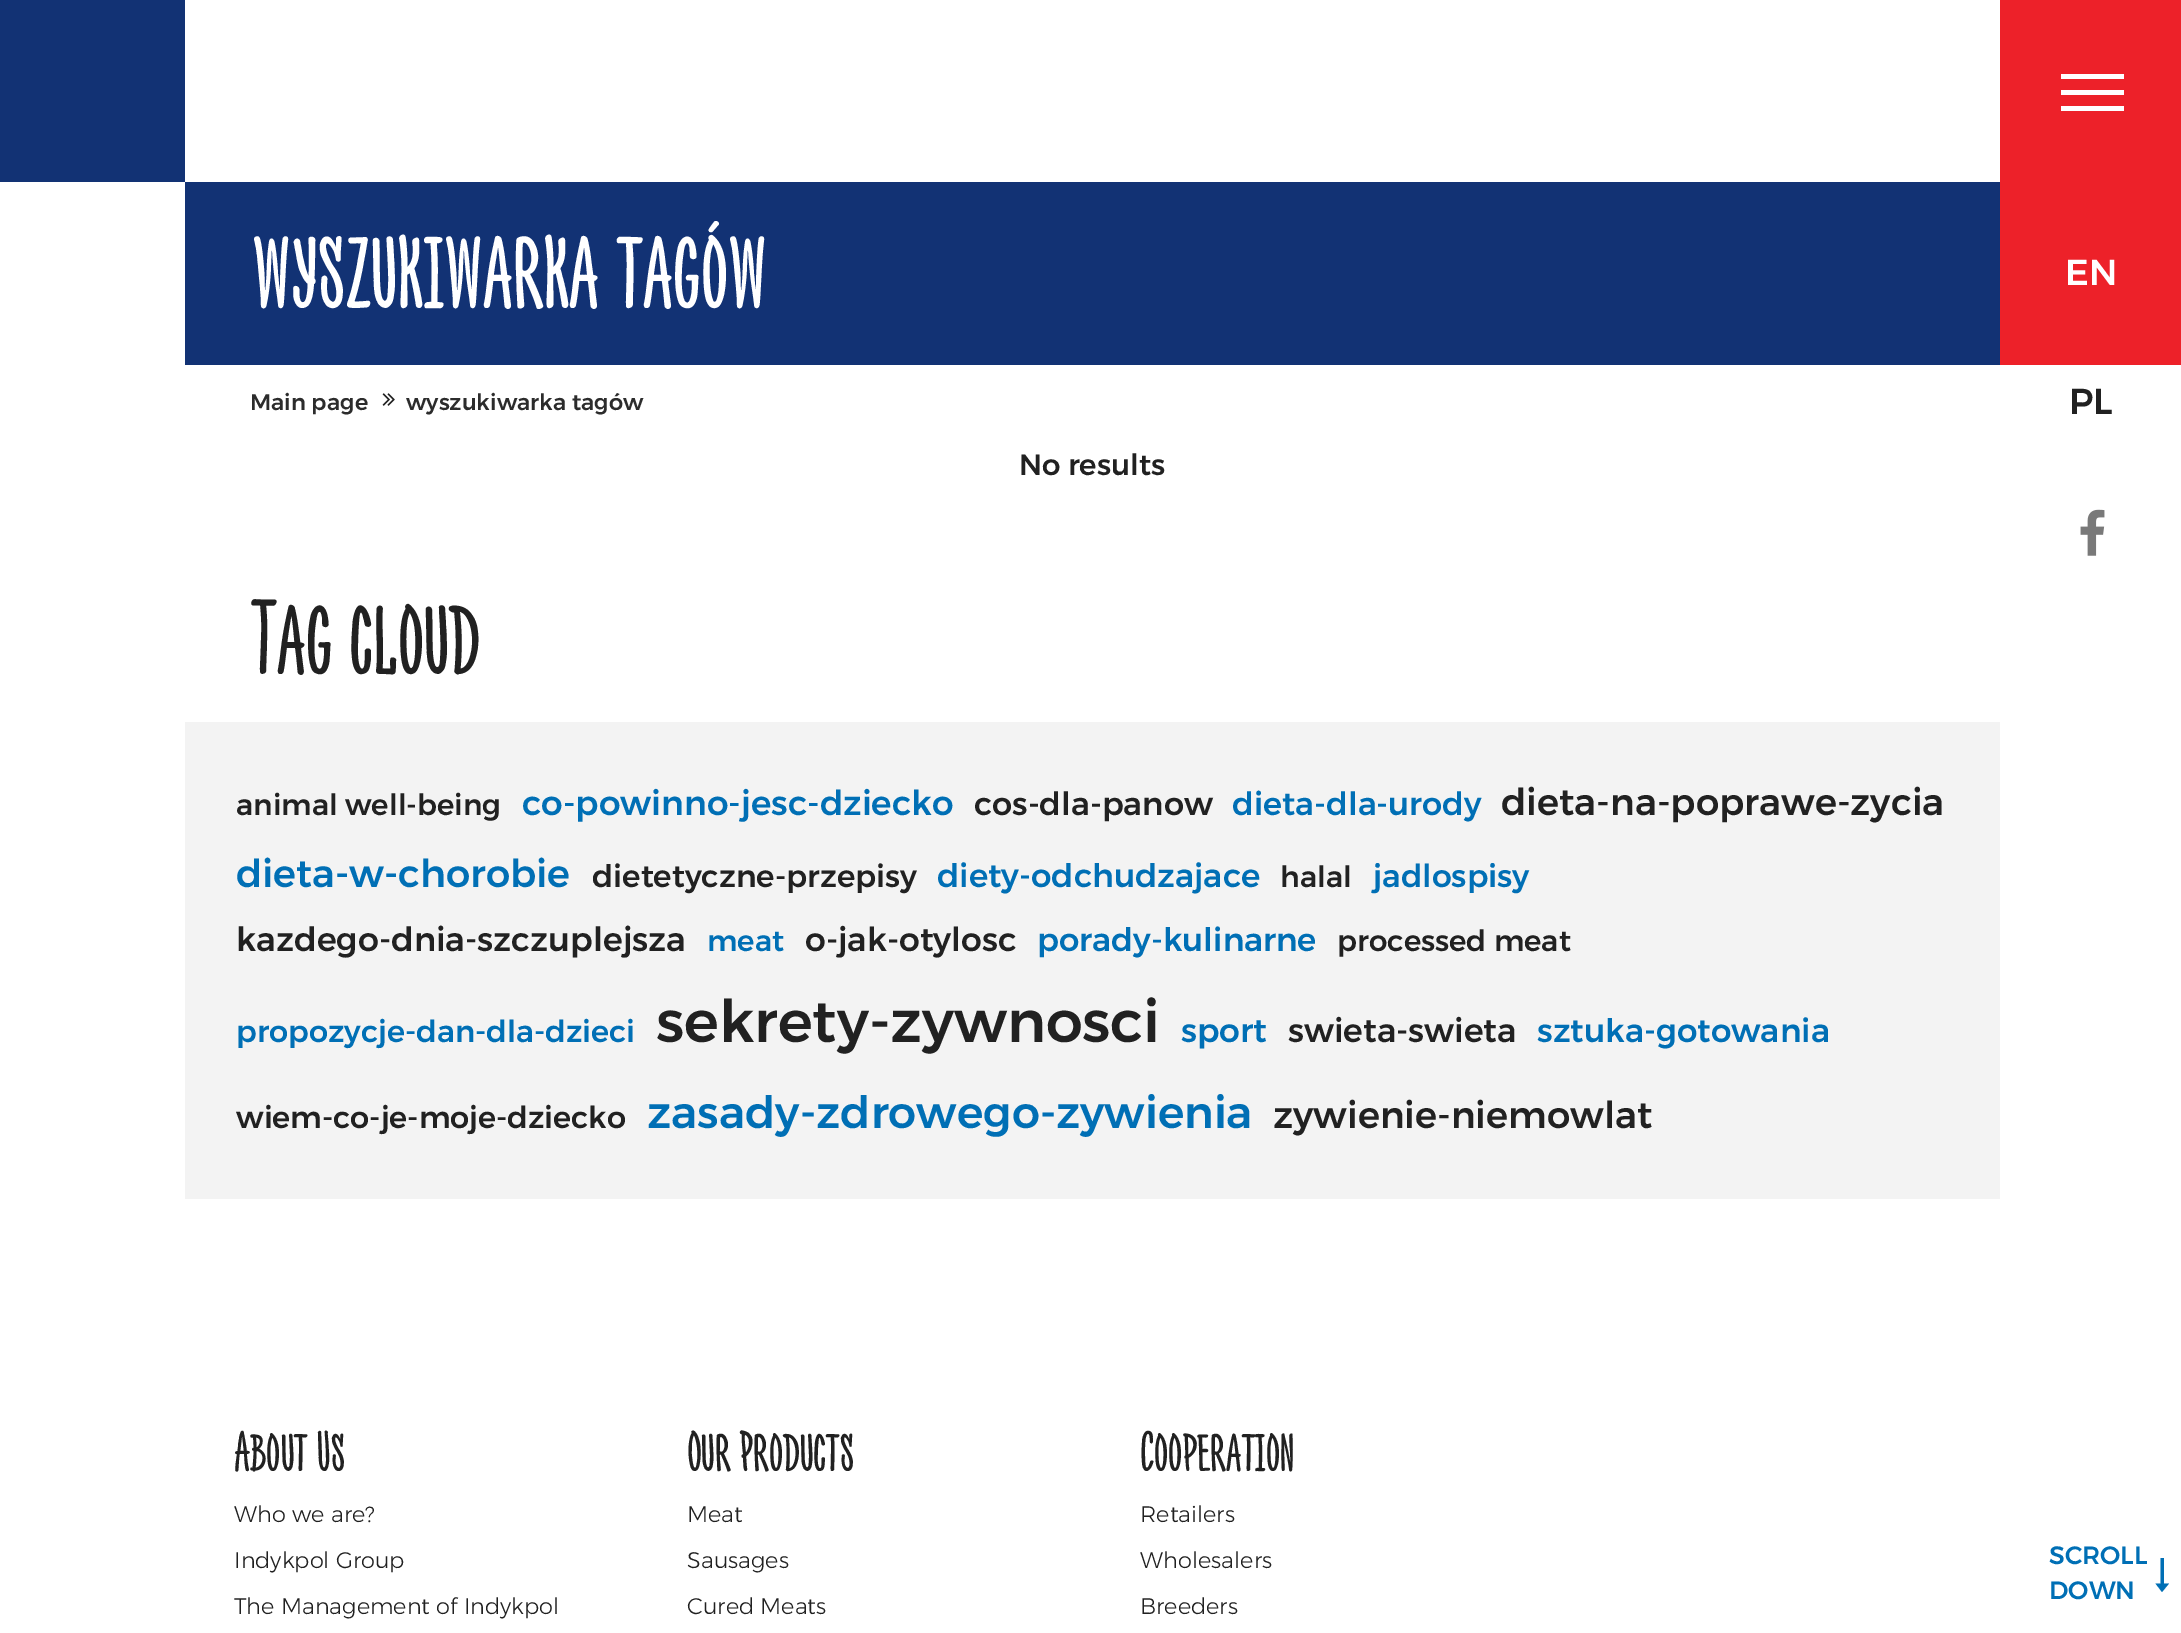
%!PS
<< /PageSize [2181 1633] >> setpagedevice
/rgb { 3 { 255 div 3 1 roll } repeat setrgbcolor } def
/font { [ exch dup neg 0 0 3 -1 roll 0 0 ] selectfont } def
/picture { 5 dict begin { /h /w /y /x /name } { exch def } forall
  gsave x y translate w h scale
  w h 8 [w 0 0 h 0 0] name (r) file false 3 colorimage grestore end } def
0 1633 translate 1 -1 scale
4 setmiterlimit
255 255 255 rgb
0 0 2181 1633 rectfill
18 50 116 rgb
0 0 185 182 rectfill
185 182 1815 183 rectfill
(img/1.rgb) 382 393 13 13 picture
[
  [185 722 1815 477 243 243 243]
  [2000 0 181 365 237 33 41]
  [2061 106 63 5 255 255 255]
  [2061 90 63 5 255 255 255]
  [2061 74 63 5 255 255 255]
] { aload pop rgb rectfill } forall
(img/2.rgb) 2080 509 25 47 picture
0 111 181 rgb
2169 1583.5 moveto 2155.5 1583.5 lineto 2162 1592 lineto closepath 2164 1558 moveto 2160.5 1558 lineto 2160.5 1583.5 lineto 2164 1583.5 lineto closepath fill
/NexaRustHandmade-Regular 112.5 font
255 255 255 rgb
252 308 moveto (wyszukiwarka tagów) show
/Montserrat-Medium 22.5 font
44 44 44 rgb
250 410 moveto (Main page) show
406 410 moveto (wyszukiwarka tagów) show
/Montserrat-Medium 29.25 font
33 33 33 rgb
1019 475 moveto (No results) show
/NexaRustHandmade-Regular 108 font
252 674 moveto (Tag cloud) show
/Montserrat-Medium 29.25 font
236 815 moveto (animal well-being) show
/Montserrat-Medium 34.25 font
0 111 181 rgb
522 815 moveto (co-powinno-jesc-dziecko) show
/Montserrat-Medium 32 font
33 33 33 rgb
974 815 moveto (cos-dla-panow) show
0 111 181 rgb
1232 815 moveto (dieta-dla-urody) show
/Montserrat-Medium 37.1 font
33 33 33 rgb
1501 815 moveto (dieta-na-poprawe-zycia) show
/Montserrat-Medium 38.5 font
0 111 181 rgb
236 887 moveto (dieta-w-chorobie) show
/Montserrat-Medium 31 font
33 33 33 rgb
592 887 moveto (dietetyczne-przepisy) show
/Montserrat-Medium 32.5 font
0 111 181 rgb
937 887 moveto (diety-odchudzajace) show
/Montserrat-Medium 29.25 font
33 33 33 rgb
1280 887 moveto (halal) show
/Montserrat-Medium 31.5 font
0 111 181 rgb
1373 887 moveto (jadlospisy) show
/Montserrat-Medium 33.3 font
33 33 33 rgb
236 951 moveto (kazdego-dnia-szczuplejsza) show
/Montserrat-Medium 29.25 font
0 111 181 rgb
707 951 moveto (meat) show
/Montserrat-Medium 33 font
33 33 33 rgb
805 951 moveto (o-jak-otylosc) show
/Montserrat-Medium 32.25 font
0 111 181 rgb
1037 951 moveto (porady-kulinarne) show
/Montserrat-Medium 29.25 font
33 33 33 rgb
1337 951 moveto (processed meat) show
/Montserrat-Medium 30.4 font
0 111 181 rgb
236 1042 moveto (propozycje-dan-dla-dzieci) show
/Montserrat-Medium 58.5 font
33 33 33 rgb
656 1042 moveto (sekrety-zywnosci) show
/Montserrat-Medium 33 font
0 111 181 rgb
1181 1042 moveto (sport) show
33 33 33 rgb
1288 1042 moveto (swieta-swieta) show
/Montserrat-Medium 32.5 font
0 111 181 rgb
1537 1042 moveto (sztuka-gotowania) show
/Montserrat-Medium 30.4 font
33 33 33 rgb
236 1128 moveto (wiem-co-je-moje-dziecko) show
/Montserrat-Medium 44.5 font
0 111 181 rgb
647 1128 moveto (zasady-zdrowego-zywienia) show
/Montserrat-Medium 37.1 font
33 33 33 rgb
1273 1128 moveto (zywienie-niemowlat) show
/NexaRustHandmade-Regular 58.5 font
234 1471 moveto (About Us) show
/Montserrat-Light 22.5 font
[
  [(Who we are?) 234 1522]
  [(Indykpol Group) 234 1568]
  [(The Management of Indykpol) 234 1614]
] { aload pop moveto show } forall
/NexaRustHandmade-Regular 58.5 font
687 1471 moveto (Our Products) show
/Montserrat-Light 22.5 font
[
  [(Meat) 687 1522]
  [(Sausages) 687 1568]
  [(Cured Meats) 687 1614]
] { aload pop moveto show } forall
/NexaRustHandmade-Regular 58.5 font
1140 1471 moveto (Cooperation) show
/Montserrat-Light 22.5 font
[
  [(Retailers) 1140 1522]
  [(Wholesalers) 1140 1568]
  [(Breeders) 1140 1614]
] { aload pop moveto show } forall
/Montserrat-Medium 36 font
255 255 255 rgb
2065 285 moveto (EN) show
33 33 33 rgb
2069 414 moveto (PL) show
/Montserrat-Medium 25 font
0 111 181 rgb
2049 1564 moveto (SCROLL) show
2049 1599 moveto (DOWN) show
showpage
